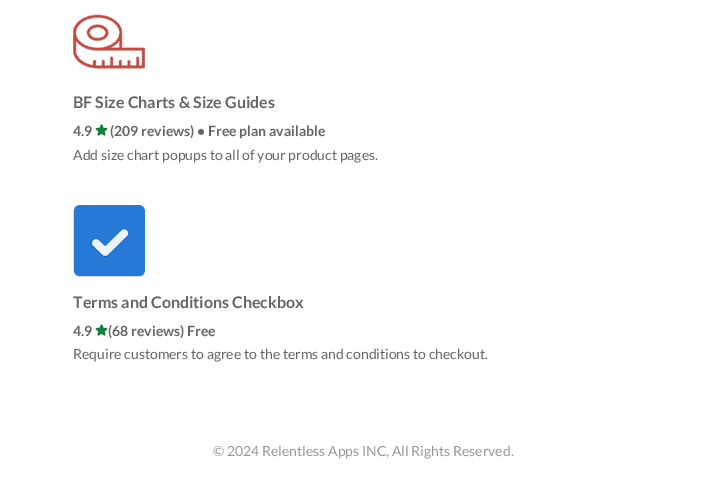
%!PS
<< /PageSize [726 478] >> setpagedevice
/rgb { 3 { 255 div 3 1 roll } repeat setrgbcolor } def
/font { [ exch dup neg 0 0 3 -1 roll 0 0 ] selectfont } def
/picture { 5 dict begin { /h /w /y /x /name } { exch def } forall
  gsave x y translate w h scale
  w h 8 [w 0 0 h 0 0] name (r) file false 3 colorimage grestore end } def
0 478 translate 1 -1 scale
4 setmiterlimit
255 255 255 rgb
0 0 726 478 rectfill
(img/1.rgb) 73 14 72 55 picture
(img/2.rgb) 95 124 13 12 picture
(img/3.rgb) 73 205 72 72 picture
(img/2.rgb) 95 324 13 12 picture
/Lato-Bold 16 font
102 102 102 rgb
73 108 moveto (BF Size Charts & Size Guides) show
/Lato-Bold 14 font
73 136 moveto (4.9) show
110 136 moveto (\(209 reviews\) • Free plan available) show
/Lato-Regular 14 font
73 160 moveto (Add size chart popups to all of your product pages.) show
/Lato-Bold 16 font
73 308 moveto (Terms and Conditions Checkbox) show
/Lato-Bold 14 font
73 336 moveto (4.9) show
108 336 moveto (\(68 reviews\) Free) show
/Lato-Regular 14 font
73 359 moveto (Require customers to agree to the terms and conditions to checkout.) show
153 153 153 rgb
213 456 moveto (© 2024 Relentless Apps INC, All Rights Reserved.) show
showpage
